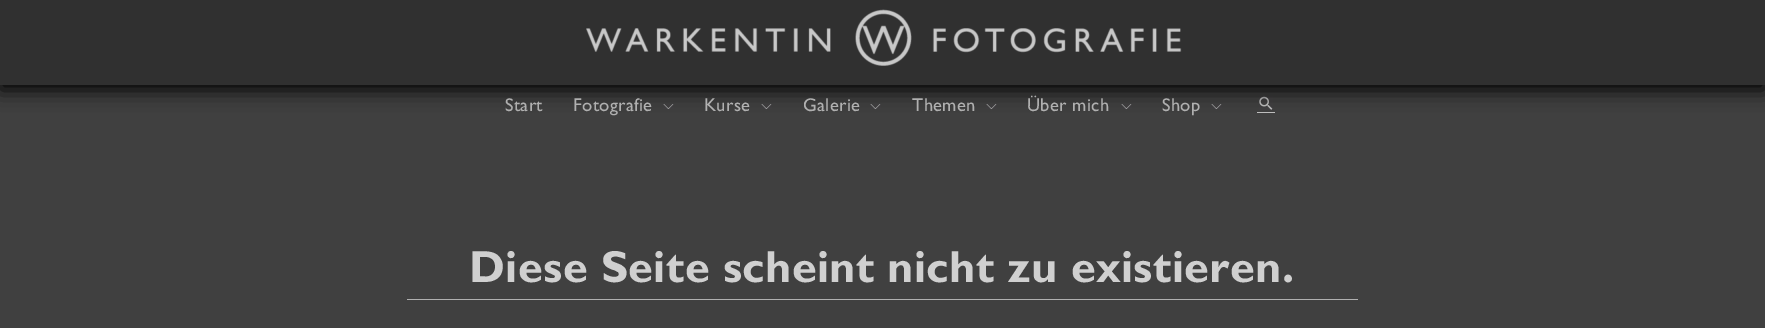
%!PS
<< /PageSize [1765 328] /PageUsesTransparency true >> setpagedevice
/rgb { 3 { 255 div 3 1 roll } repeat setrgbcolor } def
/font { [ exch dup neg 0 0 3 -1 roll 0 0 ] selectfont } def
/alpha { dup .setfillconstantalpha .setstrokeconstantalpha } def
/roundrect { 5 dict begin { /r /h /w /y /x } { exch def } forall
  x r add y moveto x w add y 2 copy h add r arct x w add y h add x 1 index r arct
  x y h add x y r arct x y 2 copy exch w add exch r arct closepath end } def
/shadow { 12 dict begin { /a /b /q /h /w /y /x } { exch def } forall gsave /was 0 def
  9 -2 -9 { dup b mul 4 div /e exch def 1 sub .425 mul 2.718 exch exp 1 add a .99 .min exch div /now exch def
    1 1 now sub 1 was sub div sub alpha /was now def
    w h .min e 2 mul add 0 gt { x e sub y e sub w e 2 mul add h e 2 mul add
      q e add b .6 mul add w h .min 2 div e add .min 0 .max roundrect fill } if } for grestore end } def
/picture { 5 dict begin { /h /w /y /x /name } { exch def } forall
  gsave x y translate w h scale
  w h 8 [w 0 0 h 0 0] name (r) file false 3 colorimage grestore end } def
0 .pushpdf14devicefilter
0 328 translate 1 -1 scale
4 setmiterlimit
64 64 64 rgb
0 0 1765 328 rectfill
(img/2.rgb) 663 104 11 5 picture
(img/2.rgb) 761 104 11 5 picture
(img/2.rgb) 870 104 11 5 picture
(img/2.rgb) 986 104 11 5 picture
(img/2.rgb) 1121 104 11 5 picture
(img/2.rgb) 1211 104 11 5 picture
192 192 192 rgb
1257 112 18 1 rectfill
(img/3.rgb) 1259 96 14 14 picture
0 0 0 rgb
0 -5 1765 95 0 10 1 shadow
48 48 48 rgb
0 0 1765 85 rectfill
(img/1.rgb) 586 9 596 57 picture
176 176 176 rgb
407 299 951 1 rectfill
/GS-Medium 18.5 font
505 111 moveto 0.35 0 (Start) ashow
573 111 moveto 0.35 0 (Fotografie) ashow
704 111 moveto 0.35 0 (Kurse) ashow
803 111 moveto 0.35 0 (Galerie) ashow
912 111 moveto 0.35 0 (Themen) ashow
1027 111 moveto 0.35 0 (Über mich) ashow
1162 111 moveto 0.35 0 (Shop) ashow
/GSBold-Bold 45 font
208 208 208 rgb
469 282 moveto 0.35 0 (Diese Seite scheint nicht zu existieren.) ashow
.poppdf14devicefilter showpage
